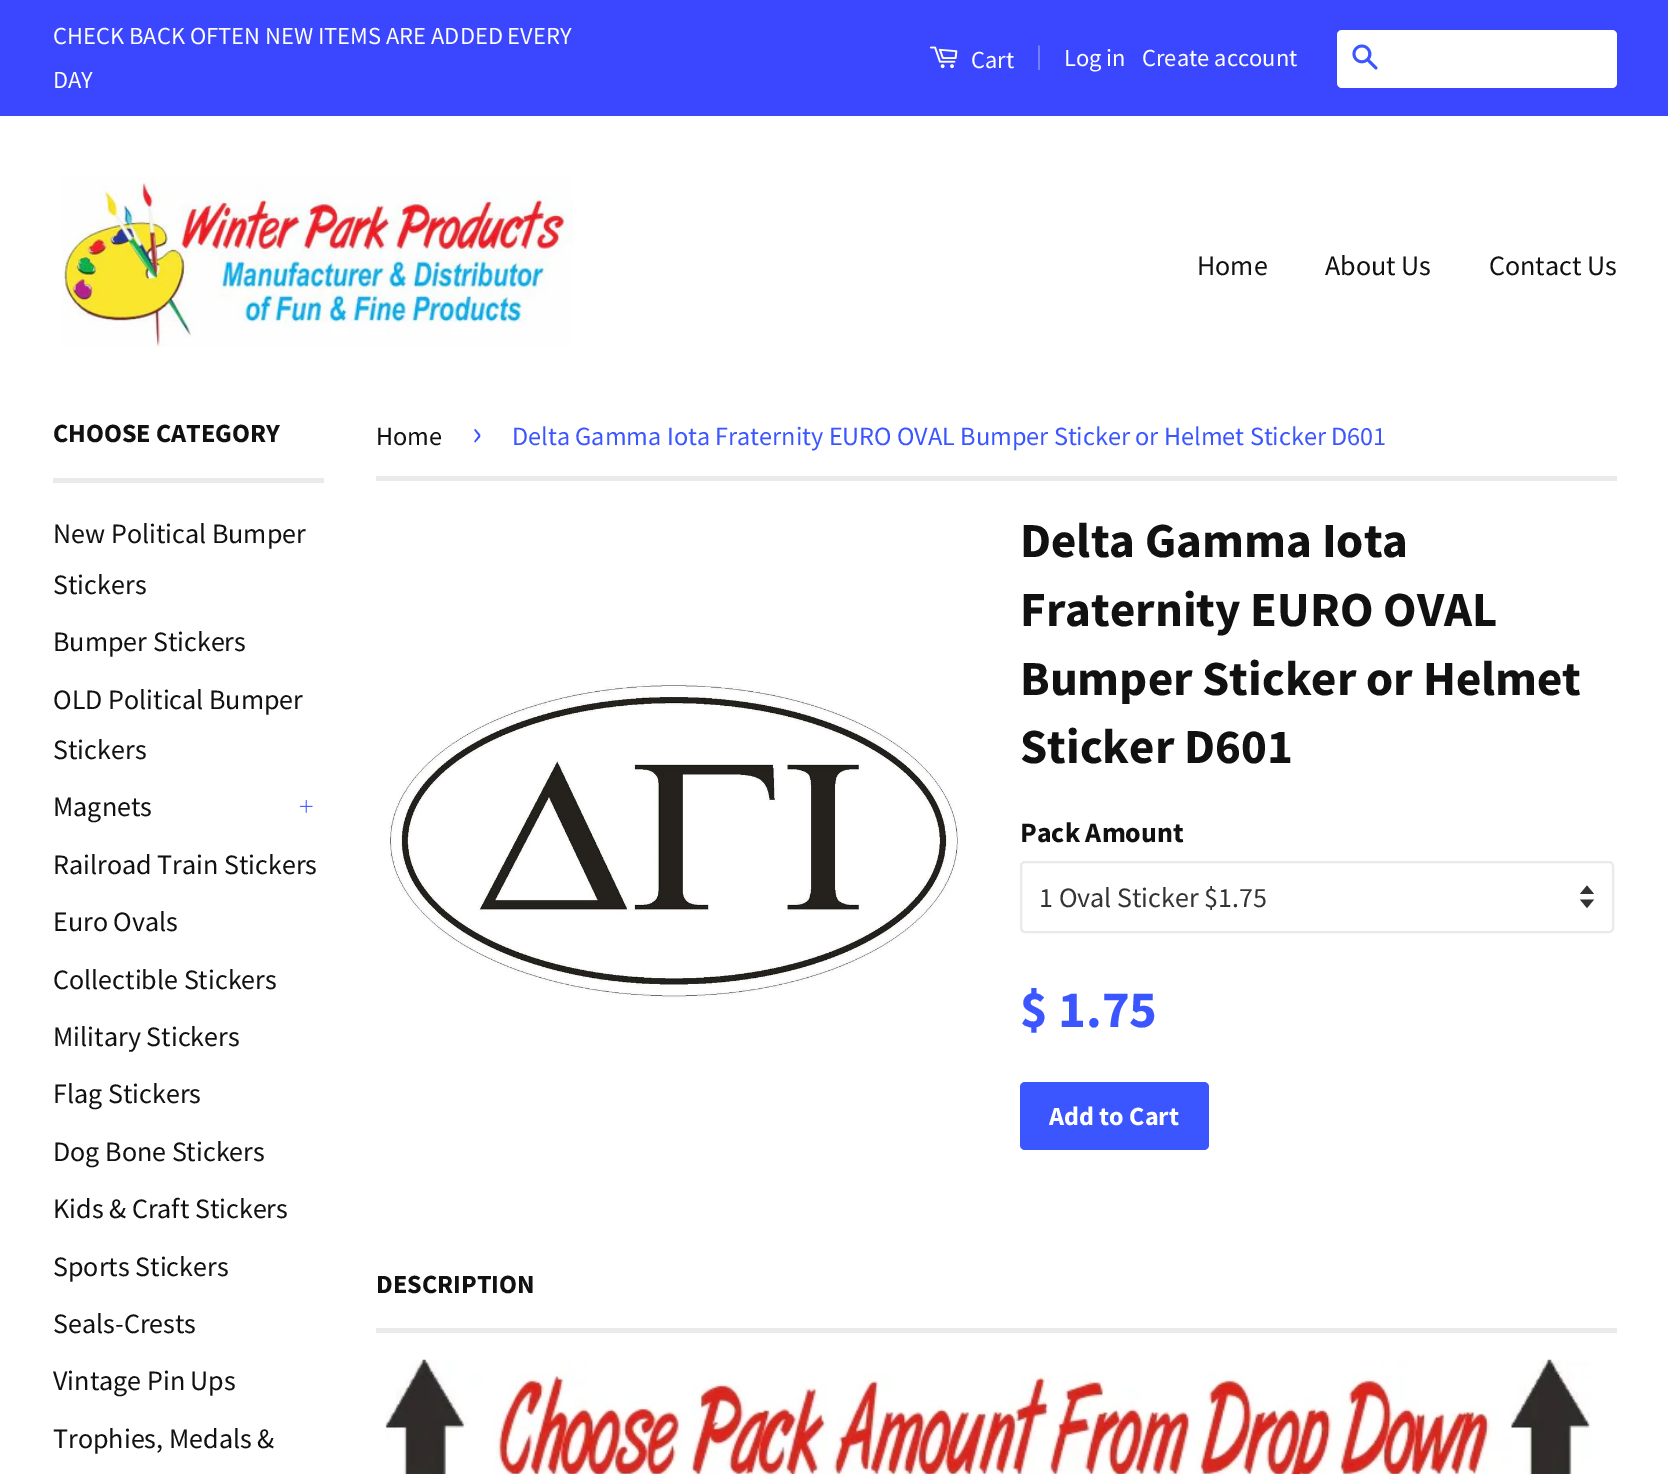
%!PS
<< /PageSize [1668 1474] >> setpagedevice
/rgb { 3 { 255 div 3 1 roll } repeat setrgbcolor } def
/font { [ exch dup neg 0 0 3 -1 roll 0 0 ] selectfont } def
/roundrect { 5 dict begin { /r /h /w /y /x } { exch def } forall
  x r add y moveto x w add y 2 copy h add r arct x w add y h add x 1 index r arct
  x y h add x y r arct x y 2 copy exch w add exch r arct closepath end } def
/picture { 5 dict begin { /h /w /y /x /name } { exch def } forall
  gsave x y translate w h scale
  w h 8 [w 0 0 h 0 0] name (r) file false 3 colorimage grestore end } def
0 1474 translate 1 -1 scale
4 setmiterlimit
255 255 255 rgb
0 0 1668 1474 rectfill
59 70 255 rgb
0 0 1668 116 rectfill
(img/1.rgb) 929 46 29 23 picture
255 255 255 rgb
1337 30 280 58 5 roundrect fill
(img/2.rgb) 1352 44 26 26 picture
(img/3.rgb) 62 177 511 170 picture
234 234 234 rgb
53 478 271 5 rectfill
(img/4.rgb) 299 800 14 13 picture
376 476 1241 5 rectfill
(img/5.rgb) 389 683 570 315 picture
51 51 51 rgb
1580 899.5 moveto 1587 908 lineto 1594 899.5 lineto closepath 1587 885.5 moveto 1580 894 lineto 1594 894 lineto closepath fill
234 234 234 rgb
2 setlinewidth
1021 862 592 70 4 roundrect stroke
59 85 255 rgb
1020 1082 189 68 5 roundrect fill
234 234 234 rgb
376 1328 1241 5 rectfill
(img/6.rgb) 385 1359 1206 115 picture
/SourceSansPro-Regular 24.5 font
255 255 255 rgb
[
  [(CHECK BACK OFTEN NEW ITEMS ARE ADDED EVERY) 53 44]
  [(DAY) 53 88]
  [(Cart) 971 68]
] { aload pop moveto show } forall
137 144 255 rgb
1036 64 moveto (|) show
255 255 255 rgb
1064 66 moveto (Log in) show
1142 66 moveto (Create account) show
/SourceSansPro-Regular 28 font
17 17 17 rgb
[
  [(Home) 1197 275]
  [(About Us) 1325 275]
  [(Contact Us) 1489 275]
] { aload pop moveto show } forall
/SourceSansPro-Bold 26.25 font
53 442 moveto (CHOOSE CATEGORY) show
/SourceSansPro-Regular 28 font
[
  [(New Political Bumper) 53 543]
  [(Stickers) 53 594]
  [(Bumper Stickers) 53 651]
  [(OLD Political Bumper) 53 709]
  [(Stickers) 53 759]
  [(Magnets) 53 816]
  [(Railroad Train Stickers) 53 874]
  [(Euro Ovals) 53 931]
  [(Collectible Stickers) 53 989]
  [(Military Stickers) 53 1046]
  [(Flag Stickers) 53 1103]
  [(Dog Bone Stickers) 53 1161]
  [(Kids & Craft Stickers) 53 1218]
  [(Sports Stickers) 53 1276]
  [(Seals-Crests) 53 1333]
  [(Vintage Pin Ups) 53 1390]
  [(Trophies, Medals &) 53 1448]
] { aload pop moveto show } forall
/SourceSansPro-Regular 26.25 font
376 445 moveto (Home) show
/SourceSansPro-Regular 37 font
59 85 255 rgb
472 445 moveto (›) show
/SourceSansPro-Regular 26.25 font
512 445 moveto (Delta Gamma Iota Fraternity EURO OVAL Bumper Sticker or Helmet Sticker D601) show
/SourceSansPro-Bold 49 font
17 17 17 rgb
[
  [(Delta Gamma Iota) 1020 557]
  [(Fraternity EURO OVAL) 1020 626]
  [(Bumper Sticker or Helmet) 1020 695]
  [(Sticker D601) 1020 763]
] { aload pop moveto show } forall
/SourceSansPro-Bold 28 font
1020 842 moveto (Pack Amount) show
/SourceSansPro-Regular 28 font
51 51 51 rgb
1039 907 moveto (1 Oval Sticker $1.75) show
/SourceSansPro-Bold 52.5 font
59 85 255 rgb
1020 1027 moveto ($ 1.75) show
/SourceSansPro-Bold 26.25 font
255 255 255 rgb
1049 1125 moveto (Add to Cart) show
17 17 17 rgb
376 1293 moveto (DESCRIPTION) show
showpage
